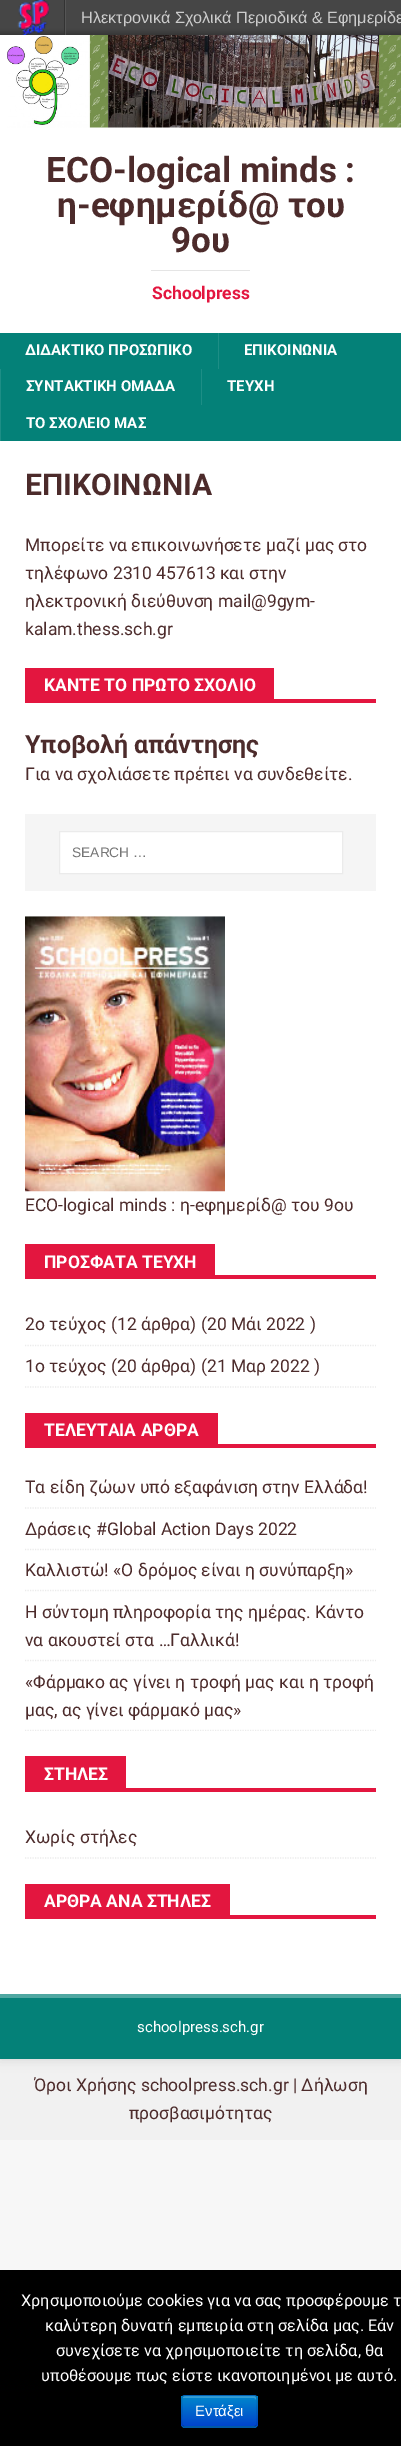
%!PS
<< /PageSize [401 2446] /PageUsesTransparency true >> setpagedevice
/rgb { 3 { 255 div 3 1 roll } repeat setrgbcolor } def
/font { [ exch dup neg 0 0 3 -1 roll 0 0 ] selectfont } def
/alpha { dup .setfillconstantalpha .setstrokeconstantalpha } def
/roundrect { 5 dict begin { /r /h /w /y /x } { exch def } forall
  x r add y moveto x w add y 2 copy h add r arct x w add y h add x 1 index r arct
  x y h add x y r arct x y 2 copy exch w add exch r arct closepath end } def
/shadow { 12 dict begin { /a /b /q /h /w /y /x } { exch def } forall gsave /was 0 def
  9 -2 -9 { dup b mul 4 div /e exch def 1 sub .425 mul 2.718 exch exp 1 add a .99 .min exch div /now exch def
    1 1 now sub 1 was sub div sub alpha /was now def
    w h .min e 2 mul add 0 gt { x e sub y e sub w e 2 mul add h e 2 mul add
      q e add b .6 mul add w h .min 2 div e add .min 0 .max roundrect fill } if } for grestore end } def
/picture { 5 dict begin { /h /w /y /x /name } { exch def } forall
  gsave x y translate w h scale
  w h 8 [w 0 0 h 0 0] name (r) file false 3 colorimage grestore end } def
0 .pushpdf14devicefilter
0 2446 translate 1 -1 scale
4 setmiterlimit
247 247 247 rgb
0 0 401 2446 rectfill
241 241 241 rgb
0 2059 401 81 rectfill
50 50 50 rgb
0 35 401 2024 0 6 0.17 shadow
gsave 0 0 moveto 401 0 lineto 401 35 lineto 0 35 lineto closepath clip newpath
<< /ShadingType 2 /ColorSpace /DeviceRGB /Coords [375 35 375 0] /Extend [true true] /Function << /FunctionType 3 /Domain [0 1] /Functions [<< /FunctionType 2 /Domain [0 1] /C0 [0.216 0.216 0.216] /C1 [0.275 0.275 0.275] /N 1 >> << /FunctionType 2 /Domain [0 1] /C0 [0.275 0.275 0.275] /C1 [0.275 0.275 0.275] /N 1 >>] /Bounds [0.18] /Encode [0 1 0 1] >> >> shfill grestore
85 85 85 rgb
65 0 1 35 rectfill
51 51 51 rgb
64 0 1 35 rectfill
(img/1.rgb) 17 0 32 35 picture
255 255 255 rgb
0 35 401 298 rectfill
(img/2.rgb) 7 35 394 93 picture
[
  [151 270 99 1 229 229 229]
  [0 333 401 108 4 129 120]
  [218 333 1 36 29 142 134]
  [0 369 1 72 29 142 134]
  [201 369 1 36 29 142 134]
  [0 441 401 1553 255 255 255]
  [25 699 351 4 227 22 63]
  [25 668 249 31 227 22 63]
  [25 814 351 77 245 245 245]
] { aload pop rgb rectfill } forall
255 255 255 rgb
59.5 831.5 moveto 342.5 831.5 lineto 342.5 873.5 lineto 59.5 873.5 lineto closepath gsave fill grestore
235 235 235 rgb
stroke
(img/3.rgb) 25 916 200 276 picture
227 22 63 rgb
25 1275 351 4 rectfill
25 1244 190 31 rectfill
235 235 235 rgb
1.2 setlinewidth
[1.25 1.25] 0 setdash
25 1345.5 moveto 376 1345.5 lineto stroke
25 1387 moveto 376 1387 lineto stroke
227 22 63 rgb
25 1444 351 4 rectfill
25 1413 193 31 rectfill
235 235 235 rgb
25 1508 moveto 376 1508 lineto stroke
25 1549.5 moveto 376 1549.5 lineto stroke
25 1590.5 moveto 376 1590.5 lineto stroke
25 1660.5 moveto 376 1660.5 lineto stroke
gsave
25 1413 351 318 rectclip
25 1730.5 moveto 376 1730.5 lineto stroke
grestore
227 22 63 rgb
25 1788 351 4 rectfill
25 1756 101 32 rectfill
235 235 235 rgb
25 1858 moveto 376 1858 lineto stroke
[
  [25 1915 351 4 227 22 63]
  [25 1884 205 31 227 22 63]
  [0 1998 401 61 4 129 120]
  [0 1994 401 4 79 167 161]
  [0 2270 401 176 0 0 0]
] { aload pop rgb rectfill } forall
0 109 204 rgb
181 2395 77 33 4 roundrect fill
gsave
181 2395 77 33 4 roundrect clip newpath
gsave 181 2396 moveto 258 2396 lineto 258 2426 lineto 181 2426 lineto closepath clip newpath
<< /ShadingType 2 /ColorSpace /DeviceRGB /Coords [219 2396 219 2426] /Extend [true true] /Function << /FunctionType 2 /Domain [0 1] /C0 [0 0.533 0.8] /C1 [0 0.267 0.8] /N 1 >> >> shfill grestore
grestore
0.2 alpha
255 255 255 rgb
185 2398 moveto 254 2398 lineto 255 2398 256 2399 256 2400 curveto 256 2398 lineto 256 2397 255 2396 254 2396 curveto 186 2396 lineto 184 2396 183 2397 183 2398 curveto closepath fill
0.25 alpha
0 0 0 rgb
[] 0 setdash
256 2426 moveto 254 2427 lineto 184.5 2427 lineto 183 2426 lineto stroke
0.1 alpha
183 2426 moveto 180.5 2424 182 2414 182 2411 curveto 182 2393.5 178.5 2395.5 196.5 2395.5 curveto 242.5 2395.5 lineto 260 2395.5 257 2393.5 257 2411 curveto 257 2414 258 2424 256 2426 curveto stroke
/LiberationSans-Regular 16.25 font
1 alpha
204 204 204 rgb
81 23 moveto (Ηλεκτρονικά Σχολικά Περιοδικά & Εφημερίδε) show
/Roboto-Bold 35 font
76 43 43 rgb
[
  [(ECO-logical minds :) 46 182]
  [(η-eφημερίδ@ του) 57 217]
  [(9ου) 171 252]
] { aload pop moveto show } forall
/Roboto-Bold 17.5 font
227 22 63 rgb
152 299 moveto (Schoolpress) show
/Roboto-Bold 15 font
255 255 255 rgb
[
  [(ΔΙΔΑΚΤΙΚΟ ΠΡΟΣΩΠΙΚΟ) 25 355]
  [(ΕΠΙΚΟΙΝΩΝΙΑ) 244 355]
  [(ΣΥΝΤΑΚΤΙΚΗ ΟΜΑΔΑ) 26 391]
  [(ΤΕΥΧΗ) 227 391]
  [(ΤΟ ΣΧΟΛΕΙΟ ΜΑΣ) 26 428]
] { aload pop moveto show } forall
/Roboto-Bold 30 font
76 43 43 rgb
25 495 moveto (ΕΠΙΚΟΙΝΩΝΙΑ) show
/Roboto-Regular 17.5 font
[
  [(Μπορείτε να επικοινωνήσετε μαζί μας στο) 25 551]
  [(τηλέφωνο 2310 457613 και στην) 25 579]
  [(ηλεκτρονική διεύθυνση mail@9gym-) 25 607]
  [(kalam.thess.sch.gr) 25 635]
] { aload pop moveto show } forall
/Roboto-Bold 17.5 font
255 255 255 rgb
44 691 moveto (ΚΑΝΤΕ ΤΟ ΠΡΩΤΟ ΣΧΟΛΙΟ) show
/Roboto-Bold 25 font
76 43 43 rgb
25 753 moveto (Υποβολή απάντησης) show
/Roboto-Regular 17.5 font
25 780 moveto (Για να σχολιάσετε πρέπει να συνδεθείτε.) show
/LiberationSans-Regular 13.75 font
117 117 117 rgb
72 857 moveto (SEARCH …) show
/Roboto-Regular 17.5 font
76 43 43 rgb
25 1211 moveto (ECO-logical minds : η-eφημερίδ@ του 9ου) show
/Roboto-Bold 17.5 font
255 255 255 rgb
44 1268 moveto (ΠΡΟΣΦΑΤΑ ΤΕΥΧΗ) show
/Roboto-Regular 17.5 font
76 43 43 rgb
25 1330 moveto (2ο τεύχος \(12 άρθρα\) \(20 Μάι 2022 \)) show
25 1372 moveto (1ο τεύχος \(20 άρθρα\) \(21 Μαρ 2022 \)) show
/Roboto-Bold 17.5 font
255 255 255 rgb
44 1436 moveto (ΤΕΛΕΥΤΑΙΑ ΑΡΘΡΑ) show
/Roboto-Regular 17.5 font
76 43 43 rgb
[
  [(Τα είδη ζώων υπό εξαφάνιση στην Ελλάδα!) 25 1493]
  [(Δράσεις #Global Action Days 2022) 25 1535]
  [(Καλλιστώ! «Ο δρόμος είναι η συνύπαρξη») 25 1576]
  [(Η σύντομη πληροφορία της ημέρας. Κάντο) 25 1618]
  [(να ακουστεί στα …Γαλλικά!) 25 1646]
  [(«Φάρμακο ας γίνει η τροφή μας και η τροφή) 25 1688]
  [(μας, ας γίνει φάρμακό μας») 25 1716]
] { aload pop moveto show } forall
/Roboto-Bold 17.5 font
255 255 255 rgb
44 1780 moveto (ΣΤΗΛΕΣ) show
/Roboto-Regular 17.5 font
76 43 43 rgb
25 1843 moveto (Χωρίς στήλες) show
/Roboto-Bold 17.5 font
255 255 255 rgb
44 1907 moveto (ΑΡΘΡΑ ΑΝΑ ΣΤΗΛΕΣ) show
/Roboto-Regular 15 font
137 2032 moveto (schoolpress.sch.gr) show
/Roboto-Regular 17.5 font
76 43 43 rgb
34 2091 moveto (Όροι Χρήσης schoolpress.sch.gr | Δήλωση) show
129 2119 moveto (προσβασιμότητας) show
/Roboto-Regular 16.25 font
255 255 255 rgb
[
  [(Χρησιμοποιούμε cookies για να σας προσφέρουμε τ) 21 2306]
  [(καλύτερη δυνατή εμπειρία στη σελίδα μας. Εάν) 45 2331]
  [(συνεχίσετε να χρησιμοποιείτε τη σελίδα, θα) 56 2356]
  [(υποθέσουμε πως είστε ικανοποιημένοι με αυτό.) 41 2381]
] { aload pop moveto show } forall
/LiberationSans-Regular 15 font
195 2416 moveto (Εντάξει) show
.poppdf14devicefilter showpage
